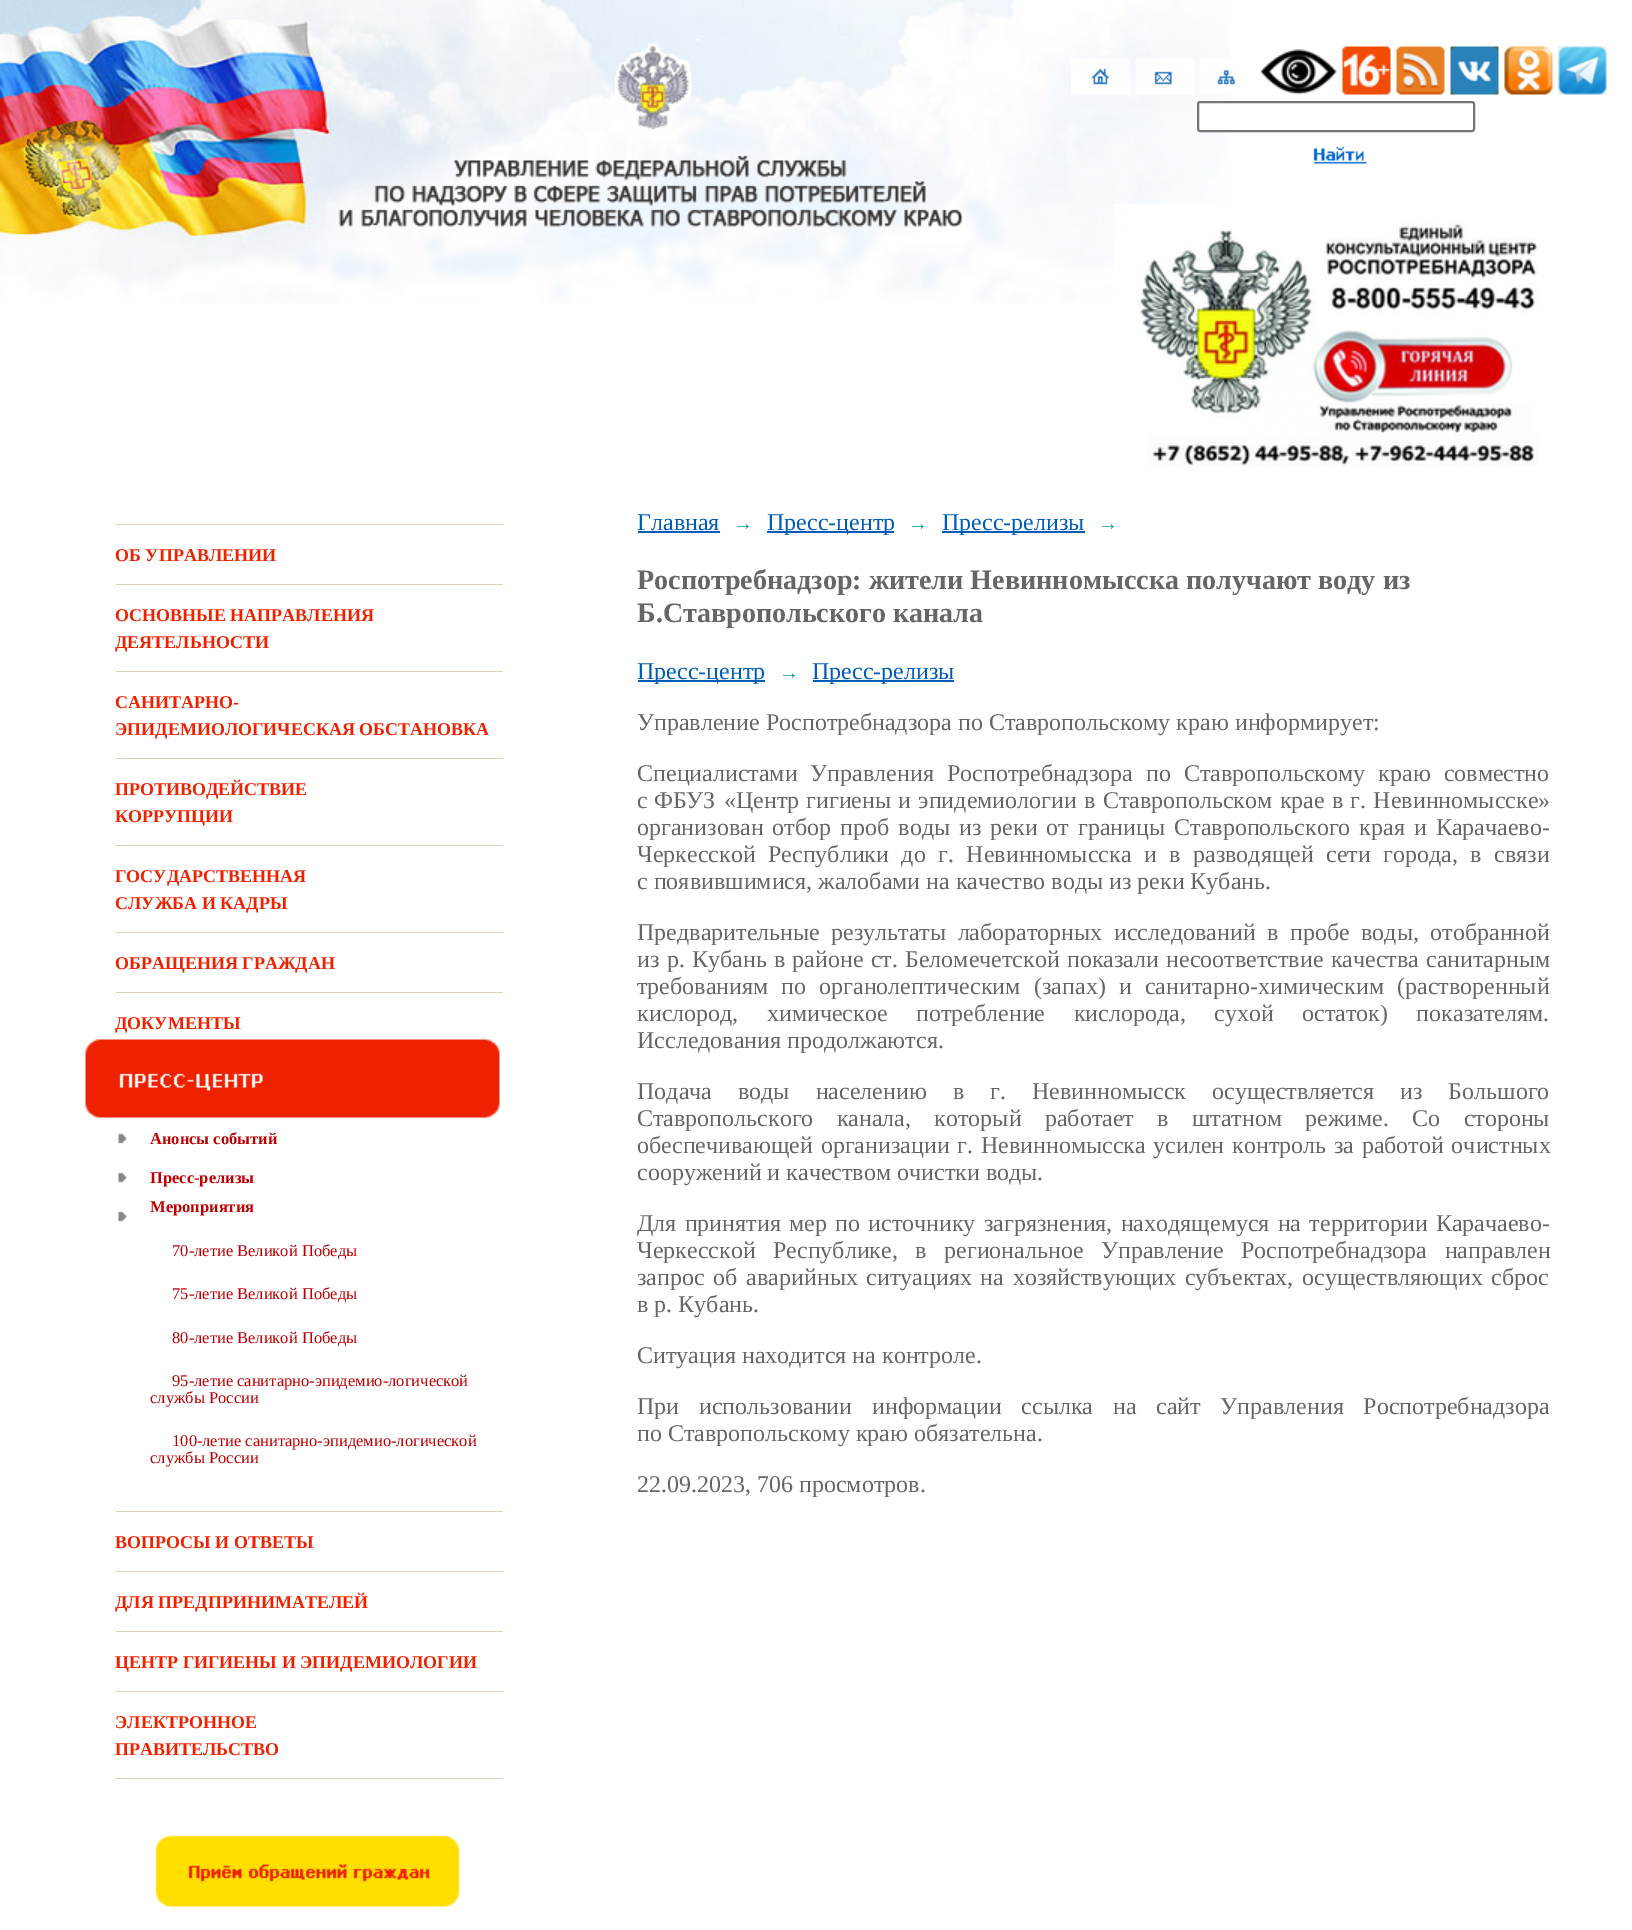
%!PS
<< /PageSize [1632 1930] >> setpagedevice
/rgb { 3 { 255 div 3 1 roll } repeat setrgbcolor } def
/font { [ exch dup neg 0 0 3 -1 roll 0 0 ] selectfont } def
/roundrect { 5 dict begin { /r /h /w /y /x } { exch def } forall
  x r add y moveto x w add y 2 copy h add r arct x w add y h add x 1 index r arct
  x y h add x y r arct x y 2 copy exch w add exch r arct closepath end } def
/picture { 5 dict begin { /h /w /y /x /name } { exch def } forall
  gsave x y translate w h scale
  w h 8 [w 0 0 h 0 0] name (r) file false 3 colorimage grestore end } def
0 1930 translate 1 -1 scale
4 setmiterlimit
255 255 255 rgb
0 0 1632 1930 rectfill
(img/1.rgb) 0 0 1231 304 picture
(img/2.rgb) 338 39 625 188 picture
(img/3.rgb) 1071 58 59 37 picture
(img/4.rgb) 1135 58 59 37 picture
(img/5.rgb) 1200 58 35 36 picture
(img/6.rgb) 1260 49 77 46 picture
(img/7.rgb) 1342 46 49 49 picture
(img/8.rgb) 1396 46 49 49 picture
(img/9.rgb) 1450 46 49 49 picture
(img/10.rgb) 1504 46 49 49 picture
(img/11.rgb) 1558 46 49 49 picture
1198 102 276 29 2 roundrect gsave fill grestore
118 118 118 rgb
2 setlinewidth
stroke
(img/12.rgb) 1313 146 54 18 picture
(img/13.rgb) 1113 204 427 262 picture
[
  [116 524 387 1 226 209 186]
  [116 584 387 1 226 209 186]
  [116 671 387 1 226 209 186]
  [116 758 387 1 226 209 186]
  [116 845 387 1 226 209 186]
  [116 932 387 1 226 209 186]
  [116 992 387 1 226 209 186]
] { aload pop rgb rectfill } forall
(img/14.rgb) 85 1039 415 79 picture
(img/15.rgb) 118 1133 9 11 picture
(img/15.rgb) 118 1172 9 11 picture
(img/15.rgb) 118 1211 9 11 picture
[
  [116 1511 387 1 226 209 186]
  [116 1571 387 1 226 209 186]
  [116 1631 387 1 226 209 186]
  [116 1691 387 1 226 209 186]
  [116 1778 387 1 226 209 186]
] { aload pop rgb rectfill } forall
(img/16.rgb) 155 1835 305 72 picture
[
  [638 531 82 2 0 93 183]
  [767 531 127 2 0 93 183]
  [942 531 143 2 0 93 183]
  [638 680 127 2 0 93 183]
  [813 680 141 2 0 93 183]
] { aload pop rgb rectfill } forall
/LiberationSerif-Bold 18 font
238 34 0 rgb
[
  [(ОБ УПРАВЛЕНИИ) 115 561]
  [(ОСНОВНЫЕ НАПРАВЛЕНИЯ) 115 621]
  [(ДЕЯТЕЛЬНОСТИ) 115 648]
  [(САНИТАРНО-) 115 708]
  [(ЭПИДЕМИОЛОГИЧЕСКАЯ ОБСТАНОВКА) 115 735]
  [(ПРОТИВОДЕЙСТВИЕ) 115 795]
  [(КОРРУПЦИИ) 115 822]
  [(ГОСУДАРСТВЕННАЯ) 115 882]
  [(СЛУЖБА И КАДРЫ) 115 909]
  [(ОБРАЩЕНИЯ ГРАЖДАН) 115 969]
  [(ДОКУМЕНТЫ) 115 1029]
] { aload pop moveto show } forall
/LiberationSerif-Bold 16.5 font
189 0 1 rgb
[
  [(Анонсы событий) 150 1144]
  [(Пресс-релизы) 150 1183]
  [(Мероприятия) 150 1212]
] { aload pop moveto show } forall
/LiberationSerif-Regular 16.5 font
[
  [(70-летие Великой Победы) 172 1256]
  [(75-летие Великой Победы) 172 1299]
  [(80-летие Великой Победы) 172 1343]
  [(95-летие санитарно-эпидемио-логической) 172 1386]
  [(службы России) 150 1403]
  [(100-летие санитарно-эпидемио-логической) 172 1446]
  [(службы России) 150 1463]
] { aload pop moveto show } forall
/LiberationSerif-Bold 18 font
238 34 0 rgb
[
  [(ВОПРОСЫ И ОТВЕТЫ) 115 1548]
  [(ДЛЯ ПРЕДПРИНИМАТЕЛЕЙ) 115 1608]
  [(ЦЕНТР ГИГИЕНЫ И ЭПИДЕМИОЛОГИИ) 115 1668]
  [(ЭЛЕКТРОННОЕ) 115 1728]
  [(ПРАВИТЕЛЬСТВО) 115 1755]
] { aload pop moveto show } forall
/LiberationSerif-Regular 24 font
0 93 183 rgb
637 530 moveto (Главная) show
/LiberationSerif-Regular 20 font
0 150 170 rgb
733 530 moveto (→) show
/LiberationSerif-Regular 24 font
0 93 183 rgb
767 530 moveto (Пресс-центр) show
/LiberationSerif-Regular 20 font
0 150 170 rgb
908 530 moveto (→) show
/LiberationSerif-Regular 24 font
0 93 183 rgb
942 530 moveto (Пресс-релизы) show
/LiberationSerif-Regular 20 font
0 150 170 rgb
1098 530 moveto (→) show
/LiberationSerif-Bold 28.1 font
102 102 102 rgb
637 589 moveto (Роспотребнадзор: жители Невинномысска получают воду из) show
637 622 moveto (Б.Ставропольского канала) show
/LiberationSerif-Regular 24 font
0 93 183 rgb
637 679 moveto (Пресс-центр) show
/LiberationSerif-Regular 20 font
0 150 170 rgb
779 679 moveto (→) show
/LiberationSerif-Regular 24 font
0 93 183 rgb
812 679 moveto (Пресс-релизы) show
102 102 102 rgb
637 730 moveto (Управление Роспотребнадзора по Ставропольскому краю информирует:) show
637 781 moveto 7 0 32 (Специалистами Управления Роспотребнадзора по Ставропольскому краю совместно) widthshow
637 808 moveto (с ФБУЗ) show
724 808 moveto («Центр) show
806 808 moveto 1.25 0 32 (гигиены и эпидемиологии в Ставропольском крае в г. Невинномысске») widthshow
637 835 moveto 3 0 32 (организован отбор проб воды из реки от границы Ставропольского края и Карачаево-) widthshow
637 862 moveto 6.5 0 32 (Черкесской Республики до г. Невинномысска и в разводящей сети города, в связи) widthshow
637 889 moveto (с появившимися, жалобами на качество воды из реки Кубань.) show
637 940 moveto 5.5 0 32 (Предварительные результаты лабораторных исследований в пробе воды, отобранной) widthshow
637 967 moveto 1.25 0 32 (из р. Кубань в районе ст. Беломечетской показали несоответствие качества санитарным) widthshow
637 994 moveto 7 0 32 (требованиям по органолептическим) widthshow
1034 994 moveto (\(запах) show
1098 994 moveto 7 0 32 (\) и санитарно-химическим) widthshow
1397 994 moveto (\(растворенный) show
637 1021 moveto 22.5 0 32 (кислород, химическое потребление кислорода, сухой остаток\) показателям.) widthshow
637 1048 moveto (Исследования продолжаются.) show
637 1099 moveto 20 0 32 (Подача воды населению в г. Невинномысск осуществляется из Большого) widthshow
637 1126 moveto 17.25 0 32 (Ставропольского канала, который работает в штатном режиме. Со стороны) widthshow
637 1153 moveto 1.75 0 32 (обеспечивающей организации г. Невинномысска усилен контроль за работой очистных) widthshow
637 1180 moveto (сооружений и качеством очистки воды.) show
637 1231 moveto 2.25 0 32 (Для принятия мер по источнику загрязнения, находящемуся на территории Карачаево-) widthshow
637 1258 moveto 11.5 0 32 (Черкесской Республике, в региональное Управление Роспотребнадзора направлен) widthshow
637 1285 moveto 2.75 0 32 (запрос об аварийных ситуациях на хозяйствующих субъектах, осуществляющих сброс) widthshow
637 1312 moveto (в р. Кубань.) show
637 1363 moveto (Ситуация находится на контроле.) show
637 1414 moveto 13.75 0 32 (При использовании информации ссылка на сайт Управления Роспотребнадзора) widthshow
637 1441 moveto (по Ставропольскому краю обязательна.) show
637 1492 moveto (22.09.2023, 706 просмотров.) show
showpage
